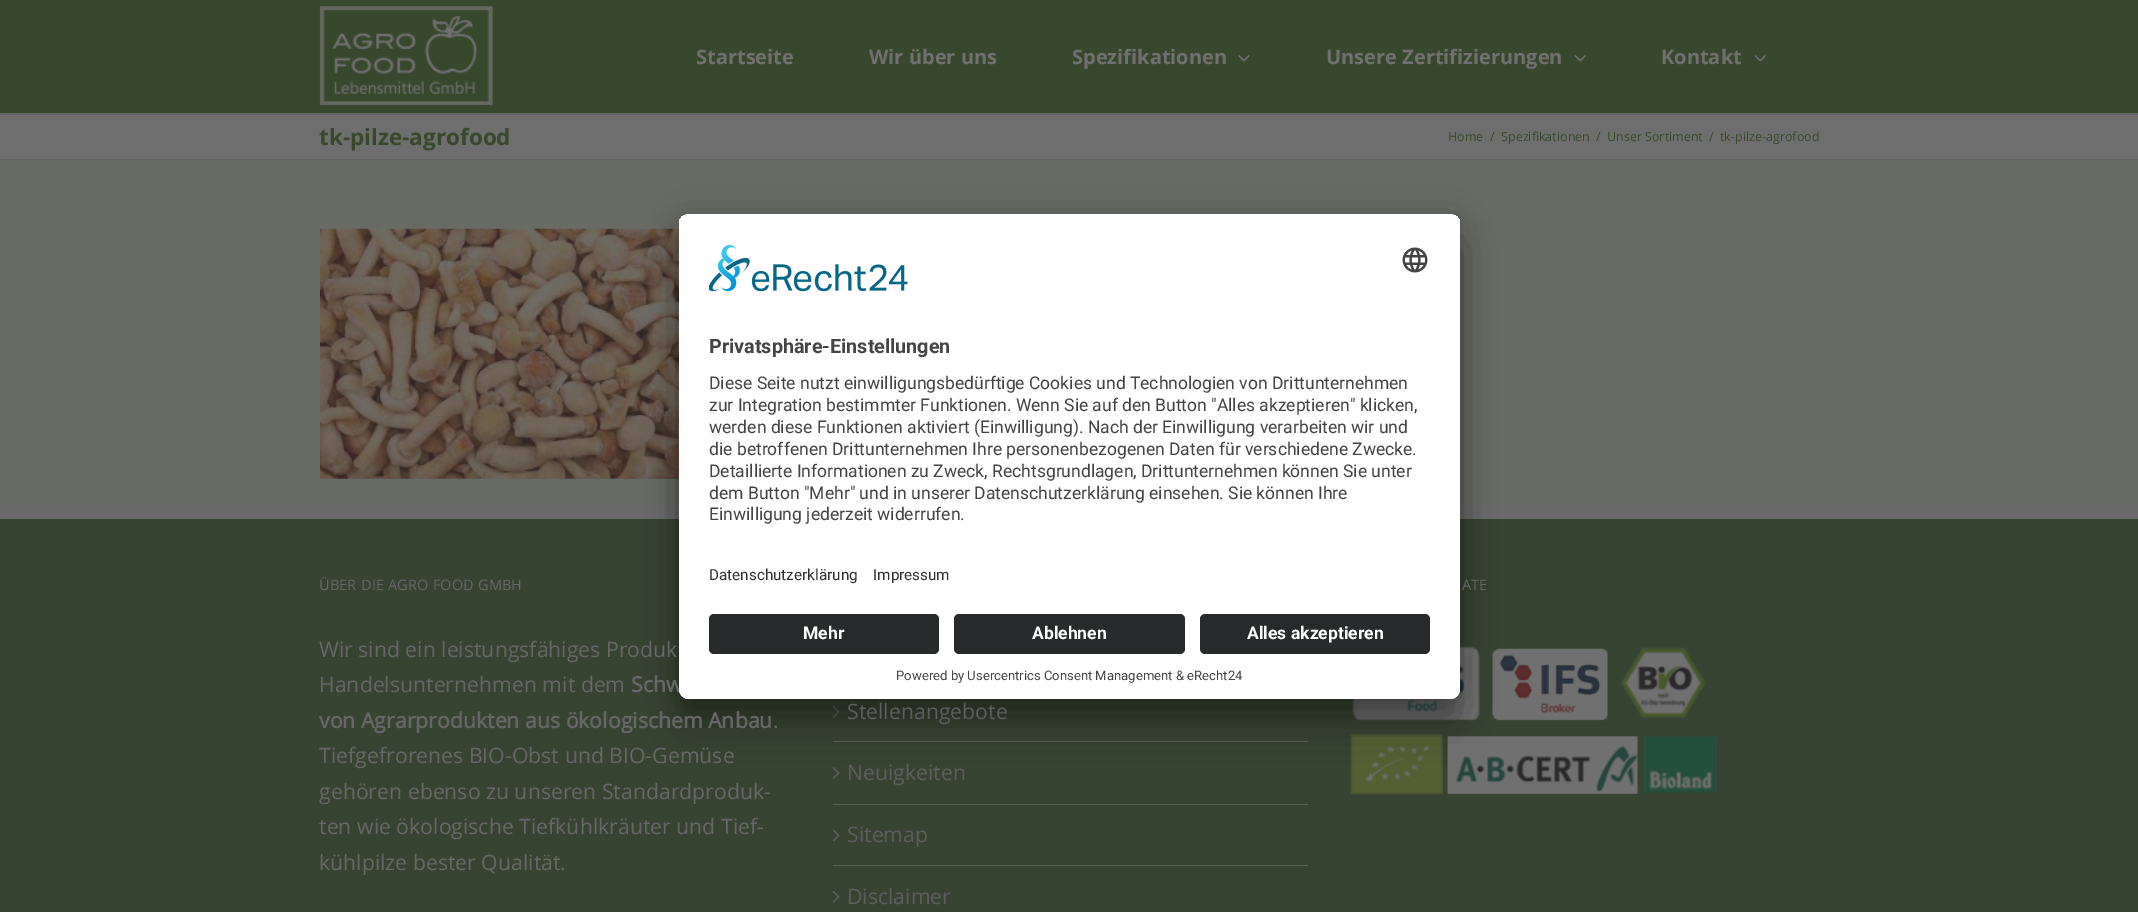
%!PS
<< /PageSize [2138 912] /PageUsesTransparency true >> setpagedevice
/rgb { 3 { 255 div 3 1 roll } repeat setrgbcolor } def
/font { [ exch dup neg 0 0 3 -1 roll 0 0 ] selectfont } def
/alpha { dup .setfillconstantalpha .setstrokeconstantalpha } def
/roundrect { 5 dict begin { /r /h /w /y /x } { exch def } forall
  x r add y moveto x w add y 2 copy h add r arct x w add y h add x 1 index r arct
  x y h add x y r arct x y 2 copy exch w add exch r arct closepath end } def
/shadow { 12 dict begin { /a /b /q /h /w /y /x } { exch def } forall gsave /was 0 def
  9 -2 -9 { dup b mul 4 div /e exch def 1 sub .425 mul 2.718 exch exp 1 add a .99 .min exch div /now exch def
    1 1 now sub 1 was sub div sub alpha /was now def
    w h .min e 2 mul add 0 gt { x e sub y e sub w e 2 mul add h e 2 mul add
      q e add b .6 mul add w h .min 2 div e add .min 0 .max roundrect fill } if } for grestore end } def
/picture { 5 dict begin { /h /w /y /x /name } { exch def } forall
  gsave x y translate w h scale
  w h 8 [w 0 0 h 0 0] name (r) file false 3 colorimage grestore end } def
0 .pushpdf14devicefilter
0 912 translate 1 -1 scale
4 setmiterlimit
110 110 110 rgb
0 0 2138 912 rectfill
56 72 44 rgb
0 0 2138 113 rectfill
101 105 94 rgb
0 113 2138 1 rectfill
(img/1.rgb) 319 6 174 99 picture
(img/2.rgb) 1238 55 12 7 picture
(img/3.rgb) 1574 55 12 7 picture
(img/3.rgb) 1754 55 12 7 picture
[
  [0 114 2138 1 99 99 99]
  [0 159 2138 1 99 99 99]
  [0 160 2138 344 104 107 100]
] { aload pop rgb rectfill } forall
(img/4.rgb) 320 228 359 251 picture
54 68 49 rgb
0 519 2138 393 rectfill
106 106 107 rgb
0 504 2138 15 rectfill
(img/5.rgb) 1350 646 367 149 picture
89 94 82 rgb
833 741 475 1 rectfill
(img/6.rgb) 832 705 8 13 picture
833 804 475 1 rectfill
(img/7.rgb) 832 767 8 12 picture
833 865 475 1 rectfill
(img/8.rgb) 832 829 8 13 picture
(img/6.rgb) 832 890 8 13 picture
0 0 0 rgb
679 239 781 485 10 17.5 0.3 shadow
679 220 781 485 10 16 0.22 shadow
/OpenSans-Bold 20 font
112 112 112 rgb
[
  [(Startseite) 696 64]
  [(Wir über uns) 869 64]
  [(Spezifikationen) 1072 64]
  [(Unsere Zertifizierungen) 1326 64]
  [(Kontakt) 1661 64]
] { aload pop moveto show } forall
/OpenSans-Bold 22.5 font
56 72 44 rgb
319 145 moveto (tk-pilze-agrofood) show
/OpenSans-Regular 12.5 font
[
  [(Home) 1448 141]
  [(/) 1490 141]
  [(Spezifikationen) 1501 141]
  [(/) 1596 141]
  [(Unser Sortiment) 1607 141]
  [(/) 1709 141]
  [(tk-pilze-agrofood) 1720 141]
] { aload pop moveto show } forall
/OpenSans-Regular 14.5 font
102 102 102 rgb
[
  [(ÜBER) 319 590]
  [(DIE) 361 590]
  [(AGRO) 388 590]
  [(FOOD) 433 590]
  [(GMBH) 478 590]
] { aload pop moveto show } forall
/OpenSans-Regular 21.25 font
319 657 moveto (Wir sind ein leistungsfähiges Produk) show
319 692 moveto (Handelsunternehmen mit dem) show
/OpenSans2-Bold 21.25 font
631 692 moveto (Schw) show
319 728 moveto (von Agrarprodukten aus ökologischem Anbau) show
/OpenSans-Regular 21.25 font
[
  [(.) 773 728]
  [(Tiefgefrorenes BIO-Obst und BIO-Gemüse) 319 763]
  [(gehören ebenso zu unseren Standardproduk-) 319 799]
  [(ten wie ökologische Tiefkühlkräuter und Tief-) 319 834]
  [(kühlpilze bester Qualität.) 319 870]
] { aload pop moveto show } forall
/OpenSans-Regular 14.5 font
1462 590 moveto (ATE) show
/OpenSans-Regular 21.25 font
93 93 93 rgb
[
  [(Stellenangebote) 847 719]
  [(Neuigkeiten) 847 780]
  [(Sitemap) 847 842]
  [(Disclaimer) 847 904]
] { aload pop moveto show } forall
255 255 255 rgb
679 214 781 485 10 roundrect fill
gsave
679 214 781 485 10 roundrect clip newpath
689 214 moveto 1450 214 lineto 1455.5 214 1460 218.5 1460 224 curveto 1460 604 lineto 679 604 lineto 679 224 lineto 679 218.5 683.5 214 689 214 curveto closepath clip newpath
679 215 781 389 rectfill
grestore
(img/9.rgb) 709 245 199 47 picture
(img/10.rgb) 1402 247 26 26 picture
/Roboto-Bold 19.75 font
68 68 68 rgb
709 353 moveto (Privatsphäre-Einstellungen) show
/Roboto-Regular 17.5 font
[
  [(Diese Seite nutzt einwilligungsbedürftige Cookies und Technologien von Drittunternehmen) 709 389]
  [(zur Integration bestimmter Funktionen. Wenn Sie auf den Button "Alles akzeptieren" klicken,) 709 411]
  [(werden diese Funktionen aktiviert \(Einwilligung\). Nach der Einwilligung verarbeiten wir und) 709 433]
  [(die betroffenen Drittunternehmen Ihre personenbezogenen Daten für verschiedene Zwecke.) 709 455]
  [(Detaillierte Informationen zu Zweck, Rechtsgrundlagen, Drittunternehmen können Sie unter) 709 477]
  [(dem Button "Mehr" und in unserer Datenschutzerklärung einsehen. Sie können Ihre) 709 499]
  [(Einwilligung jederzeit widerrufen.) 709 520]
] { aload pop moveto show } forall
/Roboto-Regular 15.25 font
48 48 48 rgb
709 580 moveto (Datenschutzerklärung) show
873 580 moveto (Impressum) show
255 255 255 rgb
679 604 moveto 1460 604 lineto 1460 689 lineto 1460 694.5 1455.5 699 1450 699 curveto 689 699 lineto 683.5 699 679 694.5 679 689 curveto closepath fill
41 42 43 rgb
709 614 230 40 5 roundrect fill
/Roboto-Bold 17.5 font
255 255 255 rgb
803 639 moveto (Mehr) show
41 42 43 rgb
954 614 231 40 5 roundrect fill
255 255 255 rgb
1032 639 moveto (Ablehnen) show
41 42 43 rgb
1200 614 230 40 5 roundrect fill
255 255 255 rgb
1247 639 moveto (Alles akzeptieren) show
/Roboto-Regular 13.1 font
68 68 68 rgb
896 680 moveto (Powered by Usercentrics Consent Management & eRecht24) show
.poppdf14devicefilter showpage
